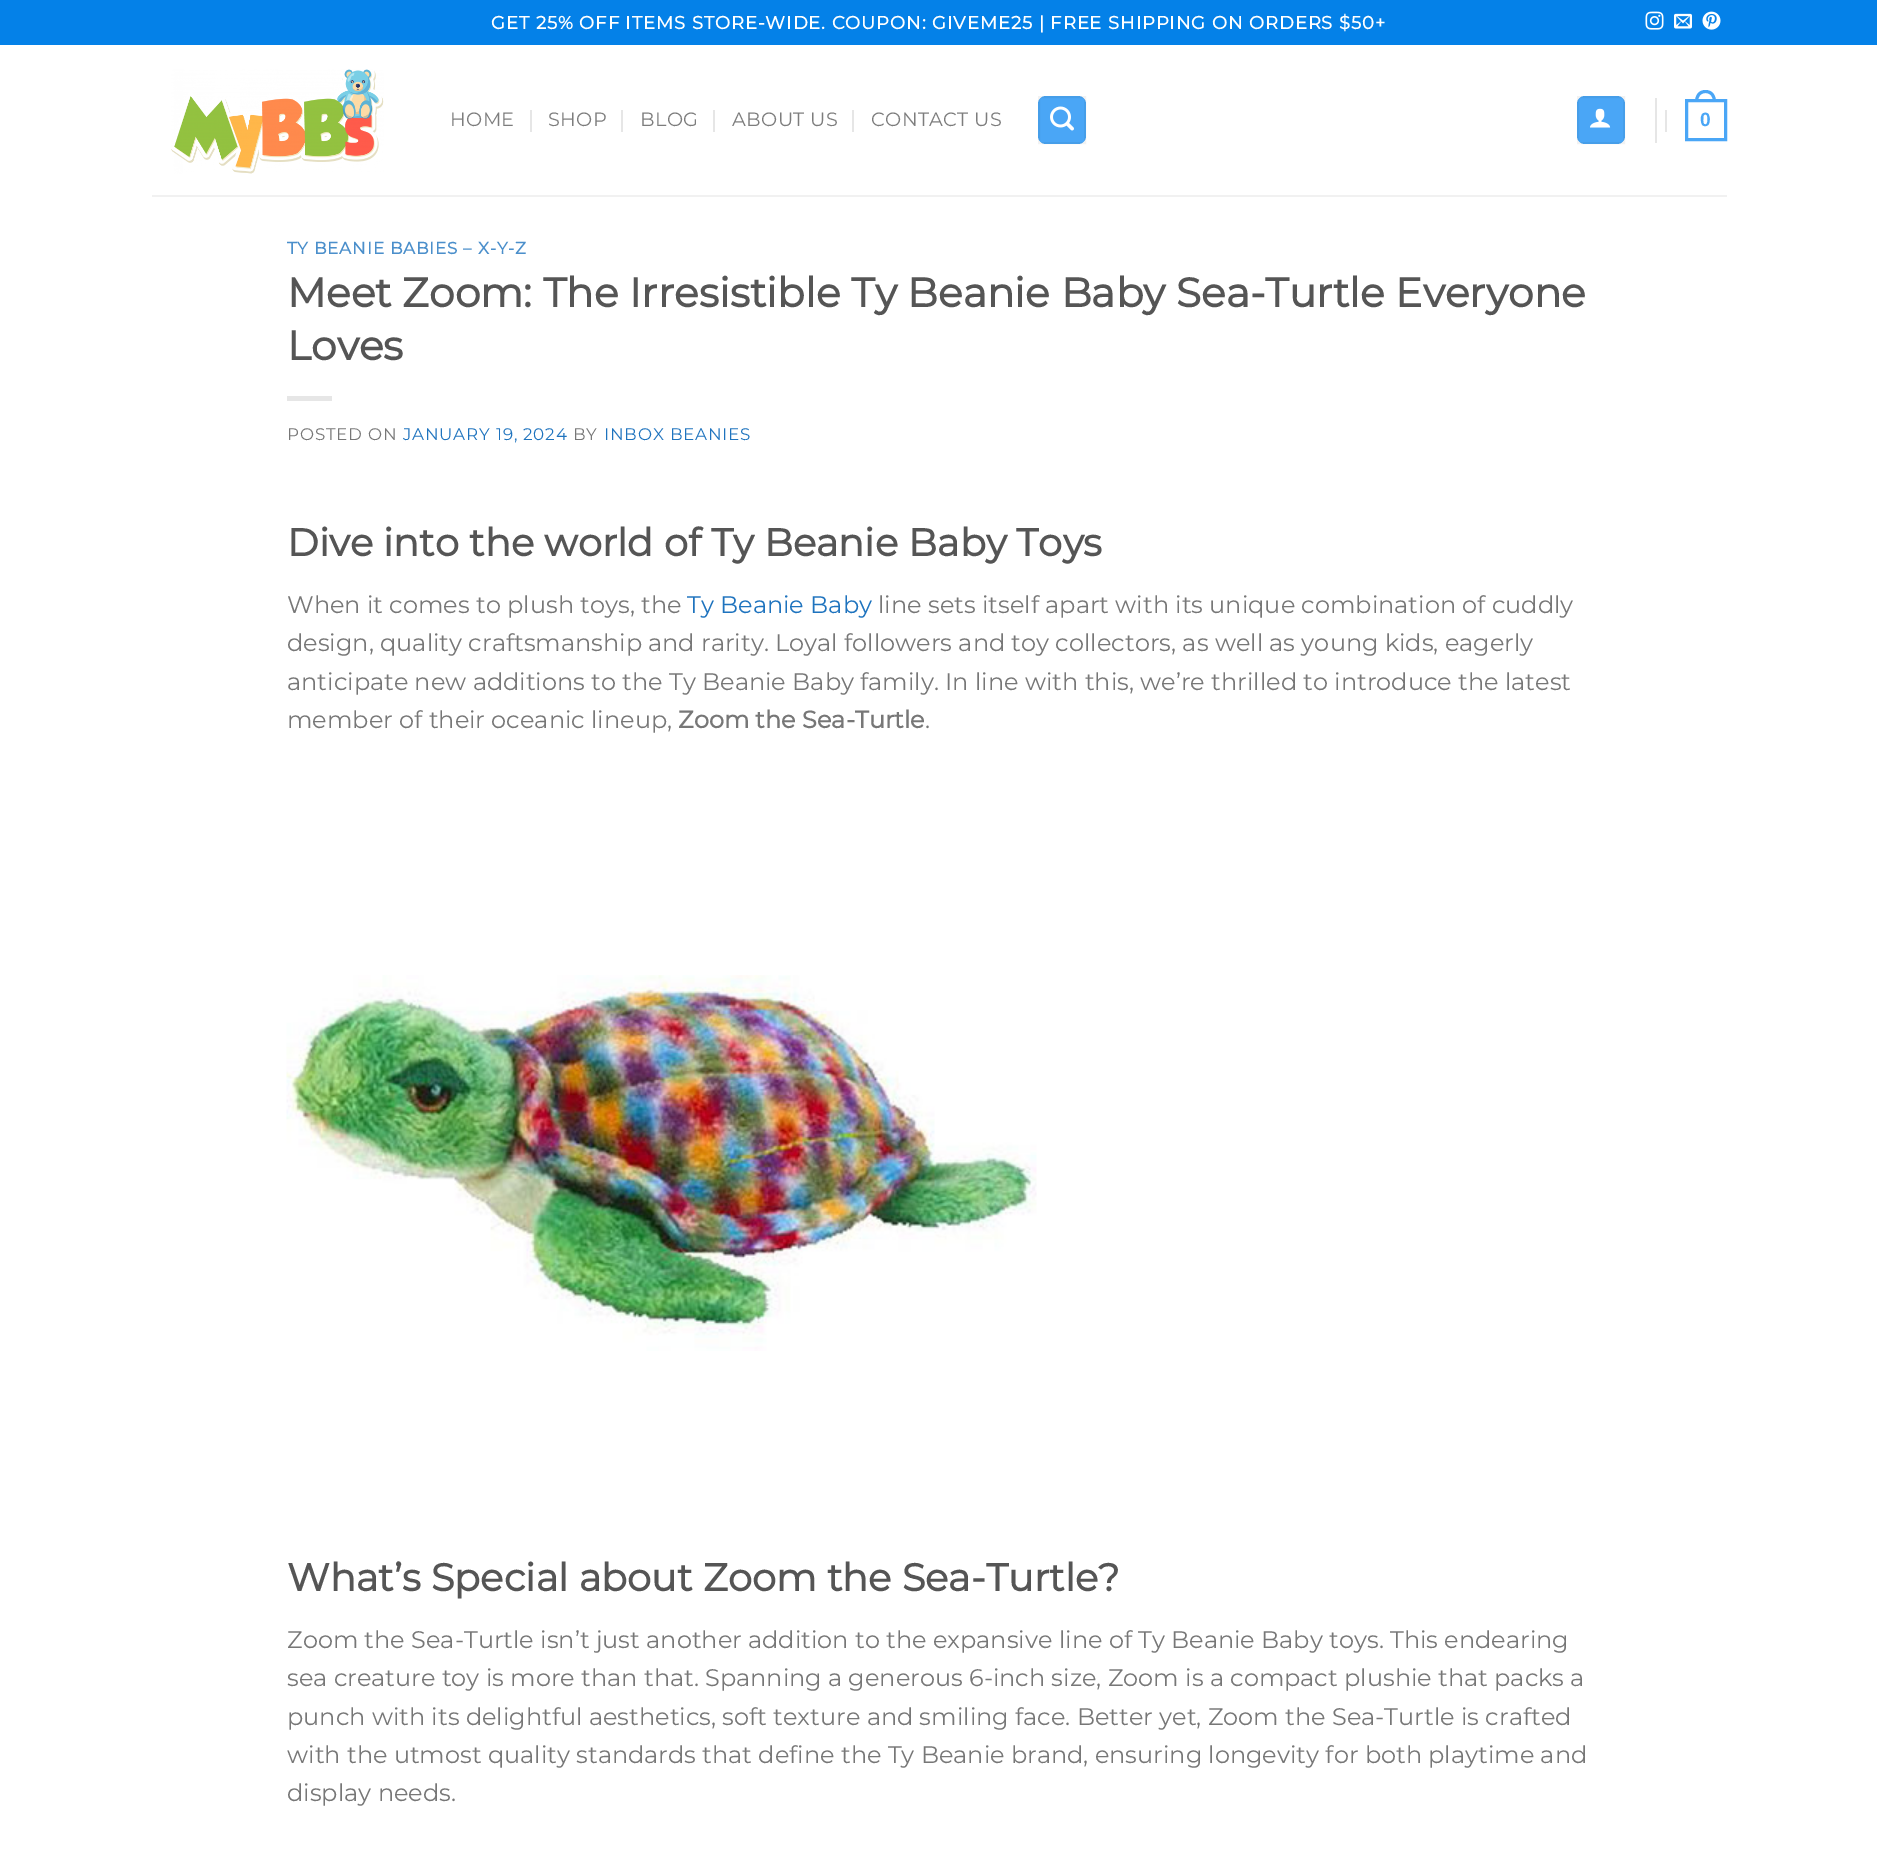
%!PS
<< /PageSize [1877 1869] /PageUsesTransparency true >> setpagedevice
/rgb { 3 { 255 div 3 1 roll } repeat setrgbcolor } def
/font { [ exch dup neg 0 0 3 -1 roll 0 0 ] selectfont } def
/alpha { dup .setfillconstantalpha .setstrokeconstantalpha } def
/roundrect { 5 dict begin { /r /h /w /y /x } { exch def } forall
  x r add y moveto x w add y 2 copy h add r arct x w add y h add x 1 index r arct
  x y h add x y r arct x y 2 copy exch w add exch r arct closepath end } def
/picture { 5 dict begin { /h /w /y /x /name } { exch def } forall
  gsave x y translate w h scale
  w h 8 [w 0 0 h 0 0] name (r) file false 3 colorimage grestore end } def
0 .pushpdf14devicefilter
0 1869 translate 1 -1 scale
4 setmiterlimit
255 255 255 rgb
0 0 1877 1869 rectfill
4 129 232 rgb
0 0 1877 45 rectfill
(img/1.rgb) 1645 11 19 19 picture
(img/2.rgb) 1674 13 18 16 picture
(img/3.rgb) 1702 11 19 19 picture
(img/4.rgb) 171 69 213 105 picture
[
  [530 110 2 22 230 230 230]
  [621 110 2 22 230 230 230]
  [713 110 2 22 230 230 230]
  [852 110 2 22 230 230 230]
] { aload pop rgb rectfill } forall
74 166 246 rgb
1038 96 48 48 8 roundrect fill
0.05 alpha
0 0 0 rgb
2 setlinewidth
1039 97 46 46 rectstroke
1 alpha
(img/5.rgb) 1050 106 24 25 picture
74 166 246 rgb
1577 96 48 48 8 roundrect fill
0.05 alpha
0 0 0 rgb
1578 97 46 46 rectstroke
1 alpha
(img/6.rgb) 1590 108 21 20 picture
230 230 230 rgb
1655 98 2 45 rectfill
1665 110 2 22 rectfill
74 166 246 rgb
3 setlinewidth
1686.5 100.5 39 39 rectstroke
1705.5 90 moveto 1712.5 90 1716 95.5 1716 102 curveto 1695 102 lineto 1695 95.5 1698.5 90 1705.5 90 curveto closepath 1705.5 93 moveto 1711 93 1713 97.5 1713 102 curveto 1698 102 lineto 1698 97.5 1700 93 1705.5 93 curveto closepath eofill
241 241 241 rgb
152 195 1575 2 rectfill
230 230 230 rgb
287 396 45 5 rectfill
(img/7.rgb) 286 975 751 376 picture
/Montserrat-Bold 18 font
255 255 255 rgb
491 29 moveto 0.9 0 (GET 25% OFF ITEMS STORE-WIDE. COUPON: GIVEME25 | FREE SHIPPING ON ORDERS $50+) ashow
/Montserrat-Thin 19.25 font
125 125 125 rgb
450 126 moveto 0.4 0 (HOME) ashow
548 126 moveto 0.4 0 (SHOP) ashow
640 126 moveto 0.4 0 (BLOG) ashow
732 126 moveto 0.4 0 (ABOUT US) ashow
871 126 moveto 0.4 0 (CONTACT US) ashow
/LiberationSans-Bold 19.25 font
74 166 246 rgb
1700 126 moveto 0.4 0 (0) ashow
/Montserrat-Bold 16.75 font
75 143 203 rgb
287 254 moveto 0.8 0 (TY BEANIE BABIES – X-Y-Z) ashow
/Montserrat-Bold 40.8 font
85 85 85 rgb
287 307 moveto (Meet Zoom: The Irresistible Ty Beanie Baby Sea-Turtle Everyone) show
287 360 moveto (Loves) show
/Montserrat-Thin 16.75 font
119 119 119 rgb
287 440 moveto 0.8 0 (POSTED ON) ashow
30 115 190 rgb
403 440 moveto 0.8 0 (JANUARY 19, 2024) ashow
119 119 119 rgb
573 440 moveto 0.8 0 (BY) ashow
30 115 190 rgb
604 440 moveto 0.8 0 (INBOX BEANIES) ashow
/Montserrat-Bold 38.4 font
85 85 85 rgb
287 556 moveto (Dive into the world of Ty Beanie Baby Toys) show
/Montserrat-Thin 24 font
119 119 119 rgb
287 613 moveto (When it comes to plush toys, the) show
30 115 190 rgb
687 613 moveto (Ty Beanie Baby) show
119 119 119 rgb
[
  [(line sets itself apart with its unique combination of cuddly) 878 613]
  [(design, quality craftsmanship and rarity. Loyal followers and toy collectors, as well as young kids, eagerly) 287 651]
  [(anticipate new additions to the Ty Beanie Baby family. In line with this, we’re thrilled to introduce the latest) 287 690]
  [(member of their oceanic lineup,) 287 728]
] { aload pop moveto show } forall
/Montserrat-Bold 24 font
678 728 moveto (Zoom the Sea-Turtle) show
/Montserrat-Thin 24 font
925 728 moveto (.) show
/Montserrat-Bold 38.4 font
85 85 85 rgb
287 1591 moveto (What’s Special about Zoom the Sea-Turtle?) show
/Montserrat-Thin 24 font
119 119 119 rgb
[
  [(Zoom the Sea-Turtle isn’t just another addition to the expansive line of Ty Beanie Baby toys. This endearing) 287 1648]
  [(sea creature toy is more than that. Spanning a generous 6-inch size, Zoom is a compact plushie that packs a) 287 1686]
  [(punch with its delightful aesthetics, soft texture and smiling face. Better yet, Zoom the Sea-Turtle is crafted) 287 1725]
  [(with the utmost quality standards that define the Ty Beanie brand, ensuring longevity for both playtime and) 287 1763]
  [(display needs.) 287 1801]
] { aload pop moveto show } forall
.poppdf14devicefilter showpage
